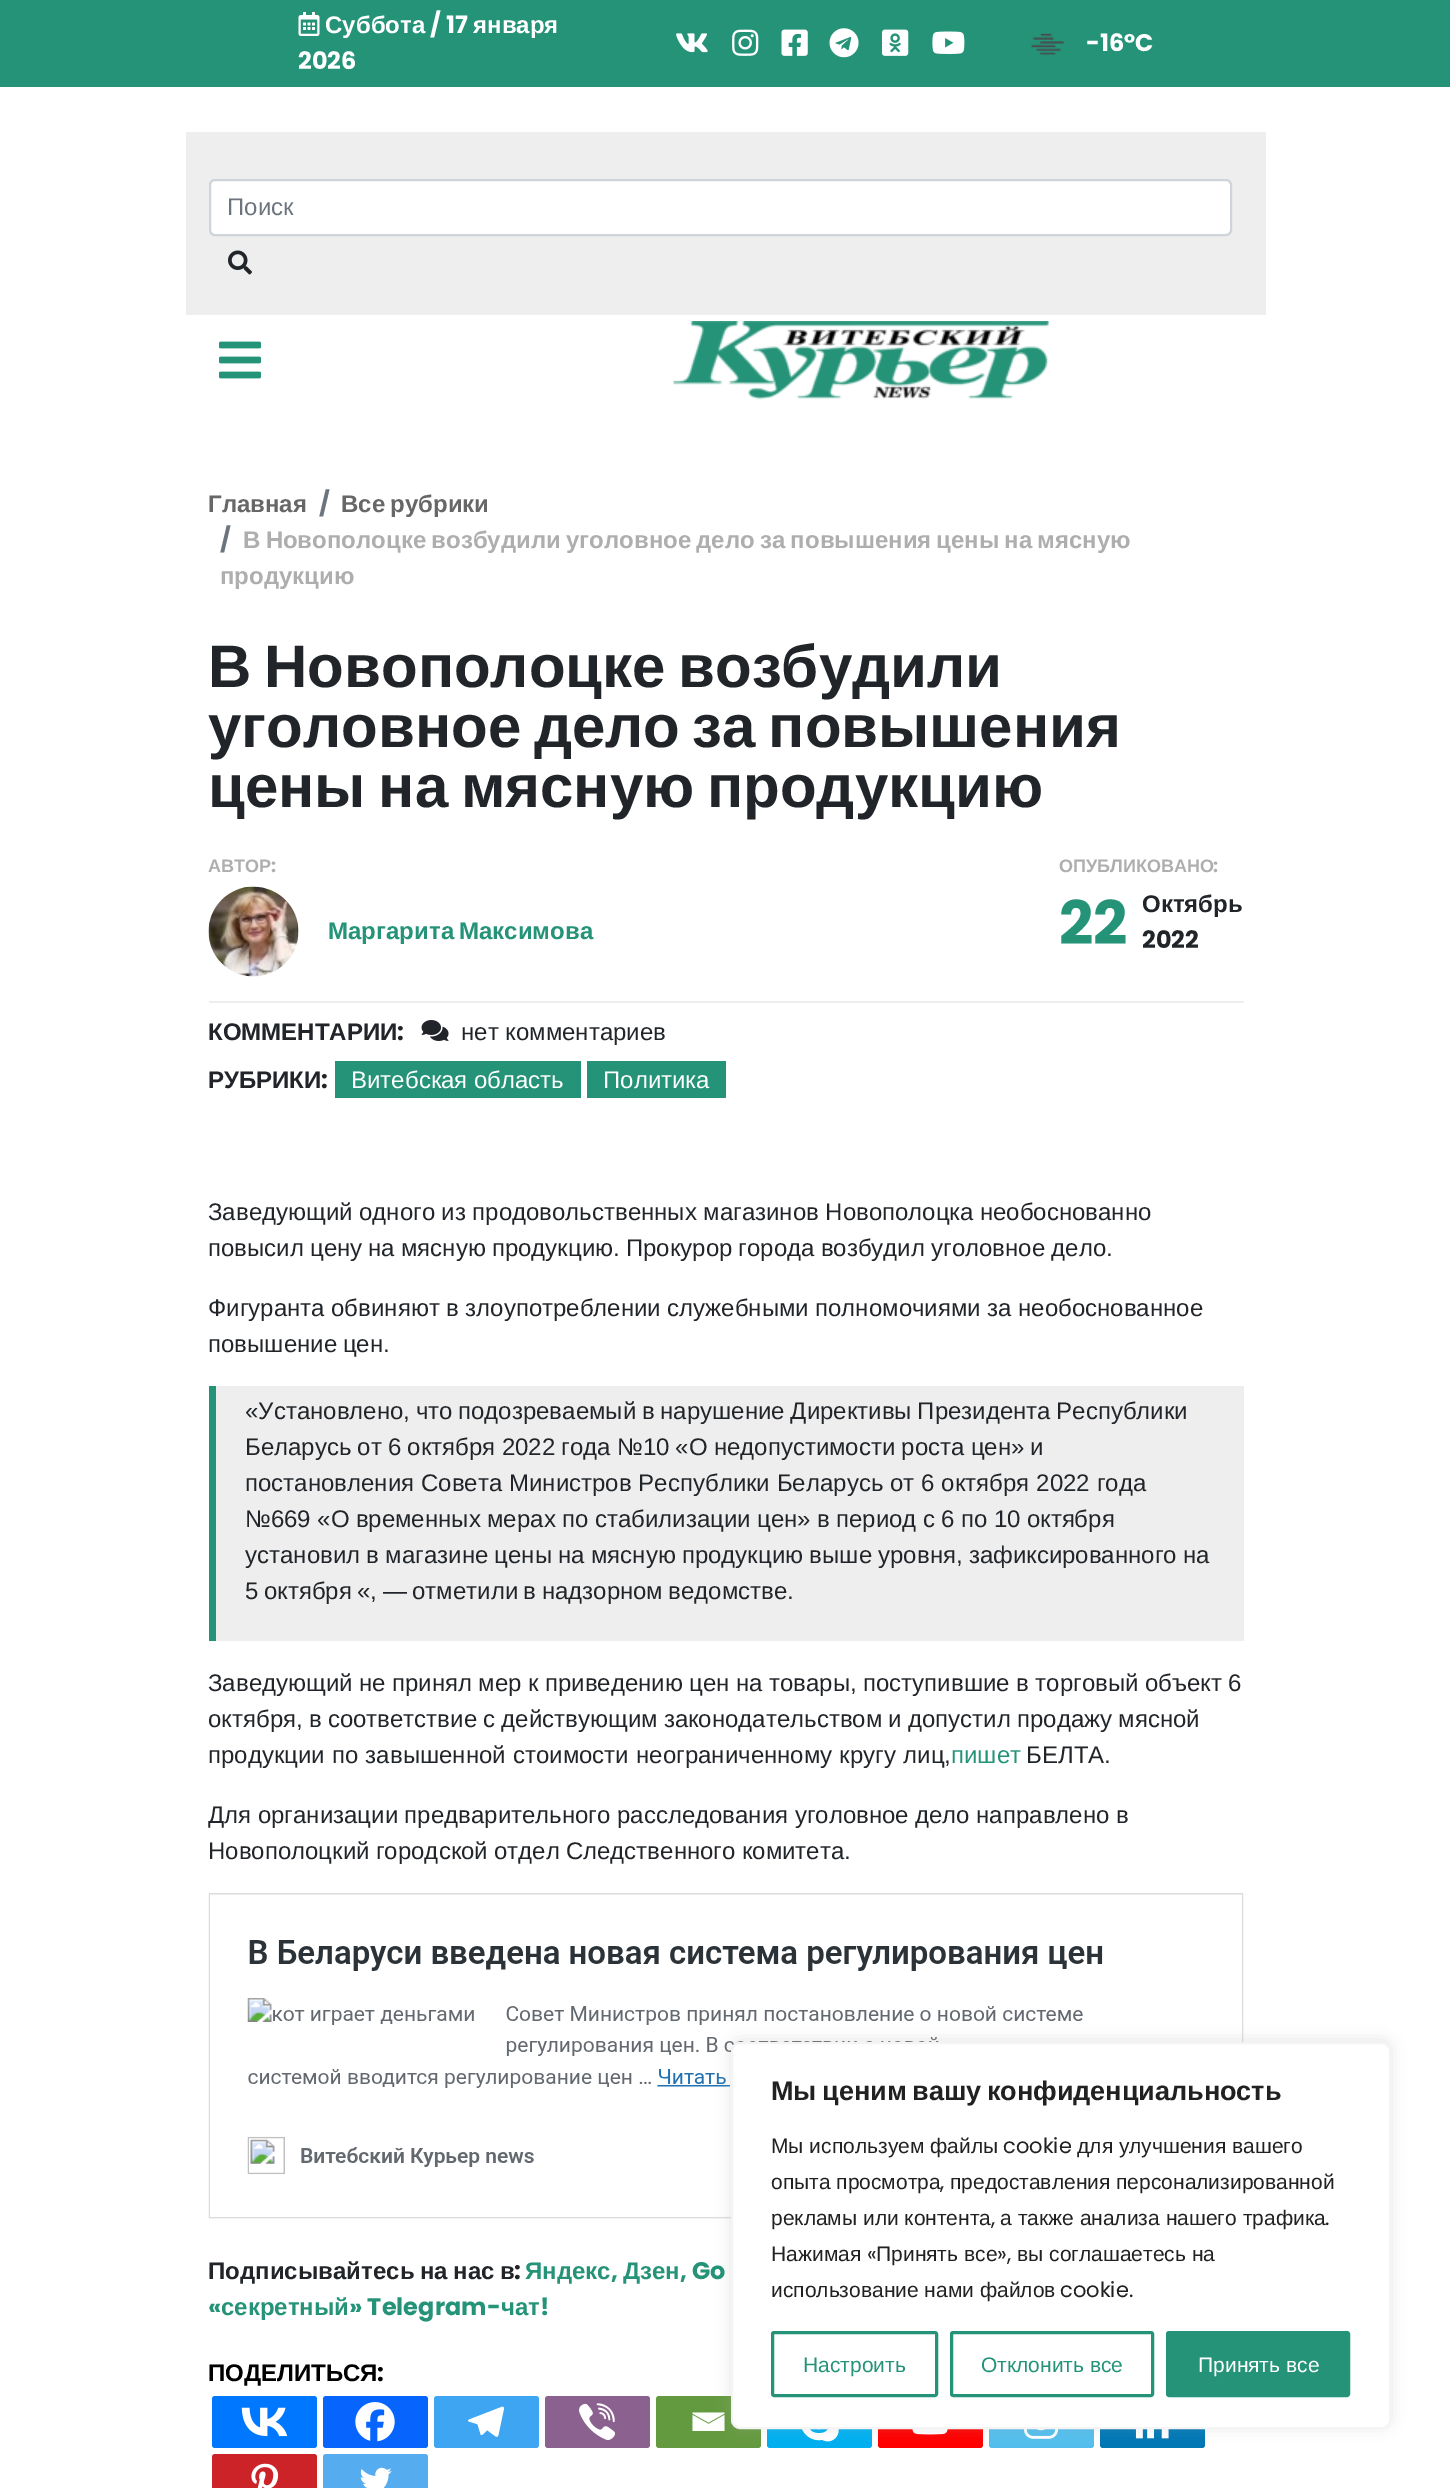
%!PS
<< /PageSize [1450 2488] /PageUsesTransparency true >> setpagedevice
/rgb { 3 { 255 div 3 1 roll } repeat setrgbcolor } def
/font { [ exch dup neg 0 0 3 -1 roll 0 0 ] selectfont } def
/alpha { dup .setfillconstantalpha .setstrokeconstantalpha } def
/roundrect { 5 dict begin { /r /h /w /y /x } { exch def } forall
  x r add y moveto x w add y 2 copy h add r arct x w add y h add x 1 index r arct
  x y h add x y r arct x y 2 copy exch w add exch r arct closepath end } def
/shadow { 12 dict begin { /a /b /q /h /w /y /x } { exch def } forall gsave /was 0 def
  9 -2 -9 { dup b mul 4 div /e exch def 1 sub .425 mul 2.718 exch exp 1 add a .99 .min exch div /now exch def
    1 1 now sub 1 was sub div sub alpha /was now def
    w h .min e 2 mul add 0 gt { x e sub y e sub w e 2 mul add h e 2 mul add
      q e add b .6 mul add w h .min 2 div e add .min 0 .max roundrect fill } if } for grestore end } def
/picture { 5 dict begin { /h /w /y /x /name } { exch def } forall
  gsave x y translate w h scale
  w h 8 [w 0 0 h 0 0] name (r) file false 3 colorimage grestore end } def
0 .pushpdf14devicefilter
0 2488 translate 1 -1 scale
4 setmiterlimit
255 255 255 rgb
0 0 1450 2488 rectfill
37 147 120 rgb
0 0 1450 87 rectfill
(img/1.rgb) 298 12 22 24 picture
(img/2.rgb) 676 33 32 20 picture
(img/3.rgb) 732 29 27 27 picture
(img/4.rgb) 781 29 27 27 picture
(img/5.rgb) 829 28 30 30 picture
(img/6.rgb) 882 29 27 27 picture
(img/7.rgb) 932 31 33 23 picture
(img/8.rgb) 1031 33 33 22 picture
238 238 238 rgb
186 132 1080 183 rectfill
255 255 255 rgb
210 180 1021 55 5 roundrect gsave fill grestore
206 212 218 rgb
2 setlinewidth
stroke
(img/9.rgb) 228 250 24 25 picture
(img/10.rgb) 219 341 42 38 picture
(img/11.rgb) 673 321 376 79 picture
238 238 238 rgb
209 1001 1035 2 rectfill
(img/12.rgb) 208 886 91 91 picture
(img/13.rgb) 421 1020 28 21 picture
[
  [335 1061 246 37 37 147 120]
  [587 1061 139 37 37 147 120]
  [216 1386 1028 255 238 238 238]
  [209 1386 7 255 37 147 120]
] { aload pop rgb rectfill } forall
(img/14.rgb) 208 1893 1036 326 picture
0 119 255 rgb
212 2396 105 52 3 roundrect fill
(img/15.rgb) 241 2407 47 30 picture
7 101 254 rgb
323 2396 105 52 3 roundrect fill
(img/16.rgb) 355 2402 40 40 picture
61 165 241 rgb
434 2396 105 52 3 roundrect fill
(img/17.rgb) 468 2406 36 31 picture
139 98 143 rgb
545 2396 105 52 3 roundrect fill
(img/18.rgb) 579 2403 36 38 picture
100 154 63 rgb
656 2396 105 52 3 roundrect fill
255 255 255 rgb
691 2412.5 moveto 724.5 2412.5 lineto 724.5 2413.5 lineto 708.5 2422.5 lineto 692.5 2413.5 lineto 692.5 2412.5 lineto 692.5 2415 moveto 708.5 2424 lineto 724.5 2415 lineto 724.5 2431 lineto 692.5 2431 lineto 692.5 2415 lineto fill
0 175 240 rgb
767 2396 105 52 3 roundrect fill
(img/19.rgb) 802 2429 37 13 picture
255 0 0 rgb
878 2396 105 52 3 roundrect fill
(img/20.rgb) 912 2429 36 6 picture
83 190 238 rgb
989 2396 105 52 3 roundrect fill
(img/21.rgb) 1024 2429 34 10 picture
0 119 181 rgb
1100 2396 105 52 3 roundrect fill
(img/22.rgb) 1135 2429 34 10 picture
204 35 41 rgb
212 2454 105 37 3 roundrect fill
(img/23.rgb) 251 2463 28 25 picture
85 172 238 rgb
323 2454 105 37 3 roundrect fill
(img/24.rgb) 360 2467 32 21 picture
172 171 171 rgb
731 2040 660 387 9 7.5 0.3 shadow
255 255 255 rgb
732 2043 658 385 8 roundrect gsave fill grestore
244 244 244 rgb
stroke
37 147 120 rgb
3 setlinewidth
772.5 2332.5 164 63 1.5 roundrect stroke
951.5 2332.5 201 63 1.5 roundrect stroke
1167.5 2332.5 181 63 1.5 roundrect gsave fill grestore
stroke
/LiberationSans-Bold 24 font
255 255 255 rgb
325 33 moveto (Суббота) show
/Poppins-Bold 24 font
430 33 moveto (/ 17) show
/LiberationSans-Bold 24 font
473 33 moveto (января) show
/Poppins-Bold 24 font
298 69 moveto (2026) show
1086 51 moveto (-16°C) show
/LiberationSans-Regular 24 font
108 117 125 rgb
227 215 moveto (Поиск) show
/LiberationSans-Bold 24 font
103 103 103 rgb
208 512 moveto (Главная) show
/Poppins-Bold 24 font
108 117 125 rgb
319 512 moveto (/) show
/LiberationSans-Bold 24 font
103 103 103 rgb
341 512 moveto -1.5 0 32 (Все рубрики) widthshow
/Poppins-Bold 24 font
108 117 125 rgb
220 548 moveto (/) show
/LiberationSans-Bold 24 font
174 174 174 rgb
243 548 moveto -1.5 0 32 (В Новополоцке возбудили уголовное дело за повышения) widthshow
936 548 moveto -1.5 0 32 (цены на мясную) widthshow
220 584 moveto (продукцию) show
/LiberationSans-Bold 60 font
33 37 41 rgb
208 687 moveto -4 0 32 (В Новополоцке возбудили) widthshow
208 747 moveto -4 0 32 (уголовное дело за повышения) widthshow
208 807 moveto -4 0 32 (цены на мясную продукцию) widthshow
/LiberationSans-Bold 18 font
174 174 174 rgb
208 872 moveto (АВТОР) show
/Poppins-Bold 18 font
271 872 moveto (:) show
/LiberationSans-Bold 24 font
37 147 120 rgb
328 939 moveto -1.5 0 32 (Маргарита Максимова) widthshow
/LiberationSans-Bold 18 font
174 174 174 rgb
1059 872 moveto (ОПУБЛИКОВАНО) show
/Poppins-Bold 18 font
1213 872 moveto (:) show
/Poppins-Bold 60 font
37 147 120 rgb
1059 944 moveto (22) show
/LiberationSans-Bold 24 font
33 37 41 rgb
1142 912 moveto (Октябрь) show
/Poppins-Bold 24 font
1142 948 moveto (2022) show
/LiberationSans-Bold 24 font
208 1040 moveto (КОММЕНТАРИИ) show
/Poppins-Bold 24 font
397 1040 moveto (:) show
/LiberationSans-Regular 24 font
461 1040 moveto (нет комментариев) show
/LiberationSans-Bold 24 font
208 1088 moveto (РУБРИКИ) show
/Poppins-Bold 24 font
321 1088 moveto (:) show
/LiberationSans-Regular 24 font
255 255 255 rgb
351 1088 moveto (Витебская область) show
603 1088 moveto (Политика) show
33 37 41 rgb
208 1220 moveto -0.25 0 32 (Заведующий одного из продовольственных магазинов Новополоцка необоснованно) widthshow
208 1256 moveto -0.6 0 32 (повысил цену на мясную продукцию. Прокурор города возбудил уголовное дело.) widthshow
208 1316 moveto -0.25 0 32 (Фигуранта обвиняют в злоупотреблении служебными полномочиями за необоснованное) widthshow
208 1352 moveto -1 0 32 (повышение цен.) widthshow
245 1419 moveto -1 0 32 («Установлено, что подозреваемый в нарушение Директивы Президента Республики) widthshow
245 1455 moveto -0.5 0 32 (Беларусь от 6 октября 2022 года №10 «О недопустимости роста цен» и) widthshow
245 1491 moveto 0.25 0 32 (постановления Совета Министров Республики Беларусь от 6 октября 2022 года) widthshow
245 1527 moveto -0.3 0 32 (№669 «О временных мерах по стабилизации цен» в период с 6 по 10 октября) widthshow
245 1563 moveto -0.5 0 32 (установил в магазине цены на мясную продукцию выше уровня, зафиксированного на) widthshow
245 1599 moveto -1.25 0 32 (5 октября «, — отметили в надзорном ведомстве.) widthshow
208 1691 moveto -0.25 0 32 (Заведующий не принял мер к приведению цен на товары, поступившие в торговый объект 6) widthshow
208 1727 moveto -0.5 0 32 (октября, в соответствие с действующим законодательством и допустил продажу мясной) widthshow
208 1763 moveto 0.5 0 32 (продукции по завышенной стоимости неограниченному кругу лиц,) widthshow
37 147 120 rgb
951 1763 moveto (пишет) show
33 37 41 rgb
1026 1763 moveto (БЕЛТА.) show
208 1823 moveto -0.25 0 32 (Для организации предварительного расследования уголовное дело направлено в) widthshow
208 1859 moveto -0.5 0 32 (Новополоцкий городской отдел Следственного комитета.) widthshow
/LiberationSans-Bold 24 font
208 2279 moveto -1 0 32 (Подписывайтесь на нас в) widthshow
/Poppins-Bold 24 font
514 2279 moveto (:) show
/LiberationSans-Bold 24 font
37 147 120 rgb
525 2279 moveto (Яндекс) show
/Poppins-Bold 24 font
611 2279 moveto (,) show
/LiberationSans-Bold 24 font
623 2279 moveto (Дзен) show
/Poppins-Bold 24 font
680 2279 moveto (, Go) show
208 2315 moveto («) show
/LiberationSans-Bold 24 font
221 2315 moveto (секретный) show
/Poppins-Bold 24 font
349 2315 moveto (» Telegram-) show
/LiberationSans-Bold 24 font
501 2315 moveto (чат) show
/Poppins-Bold 24 font
540 2315 moveto (!) show
/LiberationSans-Bold 24 font
0 0 0 rgb
208 2381 moveto (ПОДЕЛИТЬСЯ) show
/Poppins-Bold 24 font
377 2381 moveto (:) show
/LiberationSans-Bold 27 font
33 33 33 rgb
771 2100 moveto -2 0 32 (Мы ценим вашу конфиденциальность) widthshow
/LiberationSans-Regular 21 font
771 2153 moveto (Мы используем файлы) show
/Poppins-Regular 21 font
1003 2153 moveto (cookie) show
/LiberationSans-Regular 21 font
1077 2153 moveto (для улучшения вашего) show
771 2189 moveto (опыта просмотра) show
/Poppins-Regular 21 font
940 2189 moveto (,) show
/LiberationSans-Regular 21 font
950 2189 moveto (предоставления персонализированной) show
771 2225 moveto (рекламы или контента) show
/Poppins-Regular 21 font
991 2225 moveto (,) show
/LiberationSans-Regular 21 font
1000 2225 moveto (а также анализа нашего трафика) show
/Poppins-Regular 21 font
1325 2225 moveto (.) show
/LiberationSans-Regular 21 font
771 2261 moveto (Нажимая) show
/Poppins-Regular 21 font
867 2261 moveto («) show
/LiberationSans-Regular 21 font
876 2261 moveto (Принять все) show
/Poppins-Regular 21 font
997 2261 moveto (»,) show
/LiberationSans-Regular 21 font
1017 2261 moveto (вы соглашаетесь на) show
771 2297 moveto (использование нами файлов) show
/Poppins-Regular 21 font
1060 2297 moveto (cookie.) show
/LiberationSans-Regular 21 font
37 147 120 rgb
803 2372 moveto (Настроить) show
981 2372 moveto (Отклонить все) show
255 255 255 rgb
1198 2372 moveto (Принять все) show
.poppdf14devicefilter showpage
